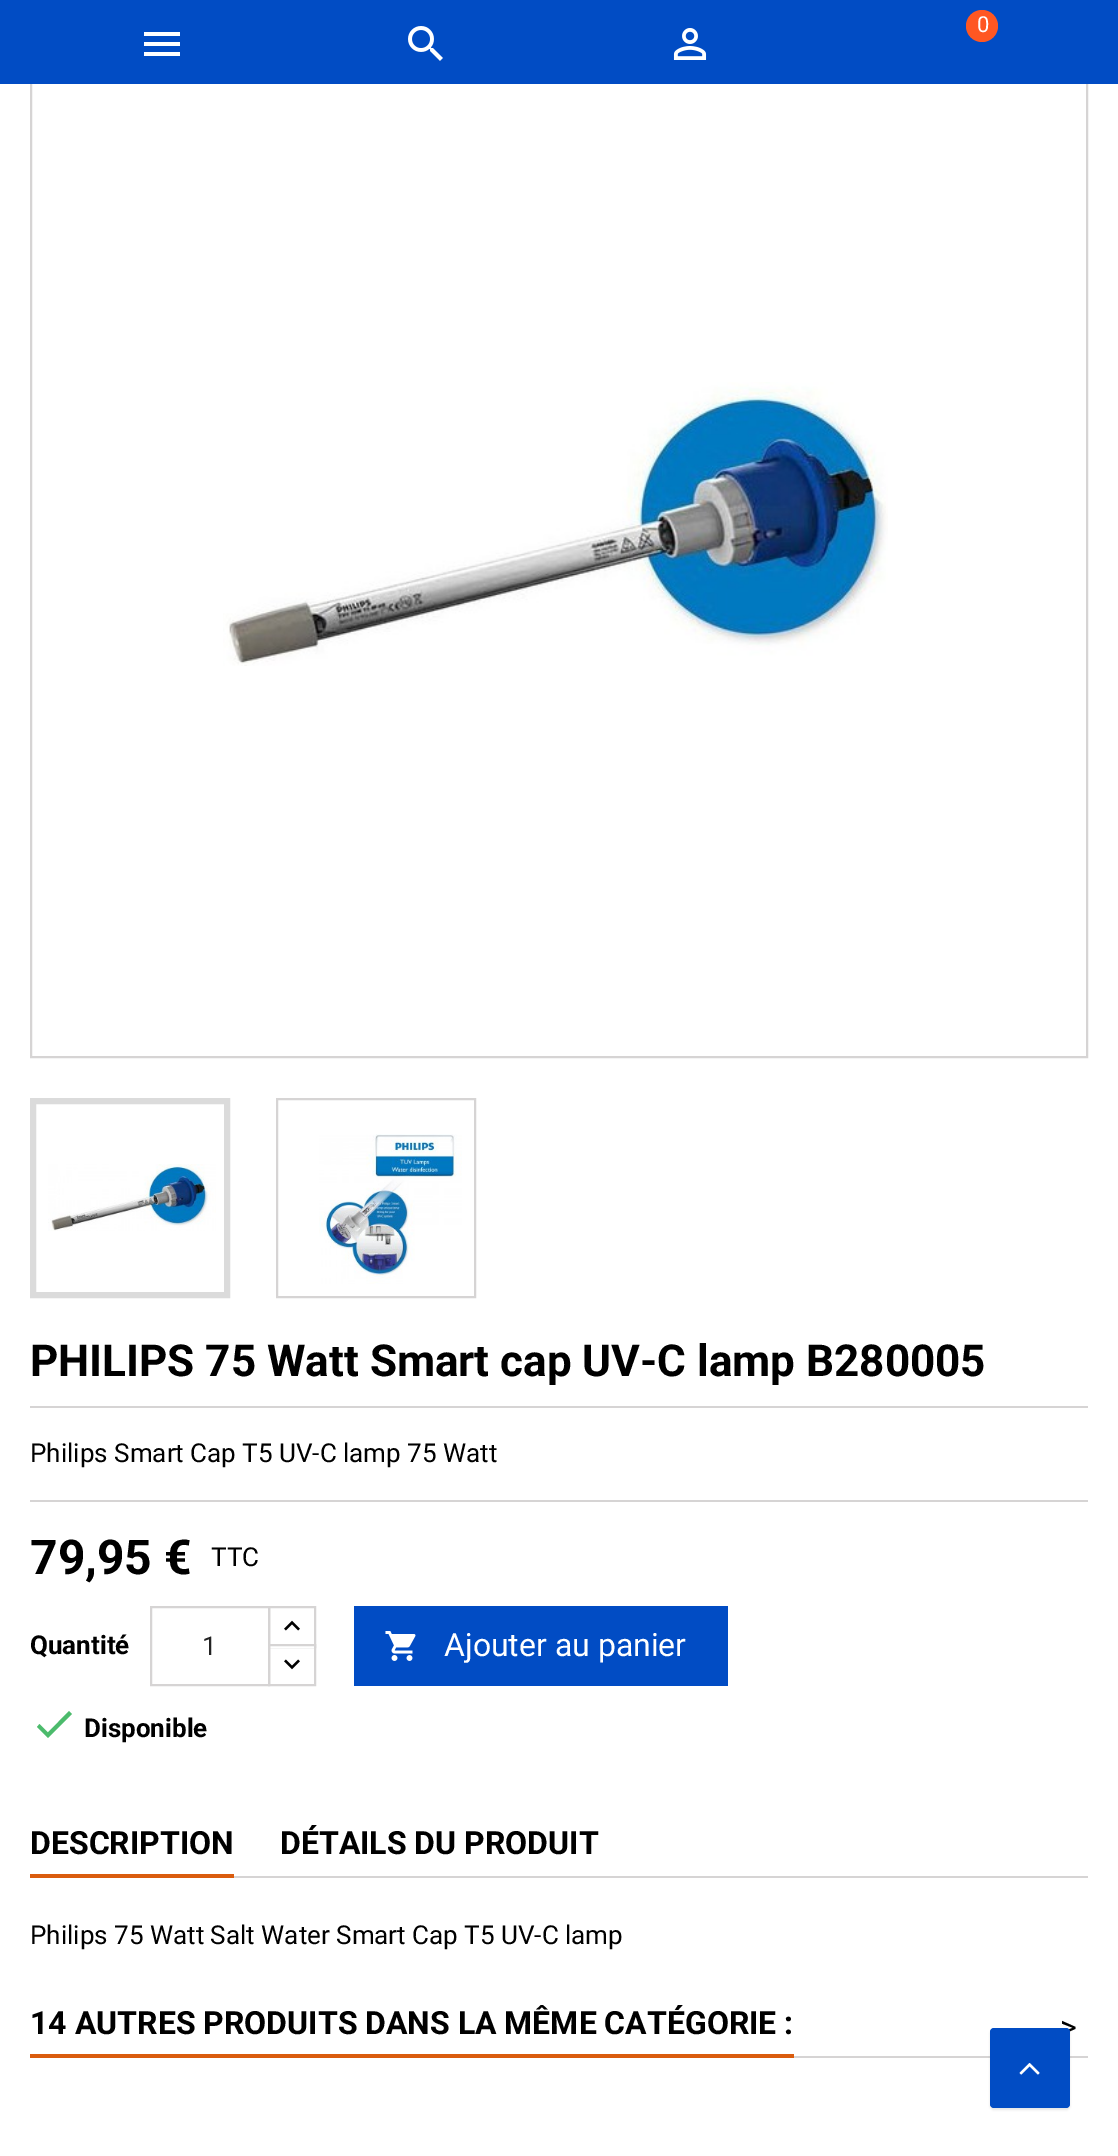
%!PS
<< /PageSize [1118 2156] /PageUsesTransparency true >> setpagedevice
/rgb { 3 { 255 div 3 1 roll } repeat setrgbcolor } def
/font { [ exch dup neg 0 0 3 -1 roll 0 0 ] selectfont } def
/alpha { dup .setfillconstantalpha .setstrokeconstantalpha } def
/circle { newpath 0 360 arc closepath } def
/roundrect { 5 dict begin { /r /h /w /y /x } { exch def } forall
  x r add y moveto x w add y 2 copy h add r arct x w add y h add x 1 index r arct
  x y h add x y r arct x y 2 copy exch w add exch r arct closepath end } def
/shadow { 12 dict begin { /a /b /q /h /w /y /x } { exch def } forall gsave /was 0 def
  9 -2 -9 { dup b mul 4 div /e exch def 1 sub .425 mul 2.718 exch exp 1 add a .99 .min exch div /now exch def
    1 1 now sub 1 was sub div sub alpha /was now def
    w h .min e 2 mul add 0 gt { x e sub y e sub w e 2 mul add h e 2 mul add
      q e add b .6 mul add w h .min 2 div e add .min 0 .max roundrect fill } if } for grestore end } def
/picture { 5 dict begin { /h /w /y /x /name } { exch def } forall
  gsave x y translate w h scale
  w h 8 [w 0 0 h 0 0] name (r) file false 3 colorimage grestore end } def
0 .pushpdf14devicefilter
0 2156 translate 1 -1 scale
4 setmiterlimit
255 255 255 rgb
0 0 1118 2156 rectfill
214 212 212 rgb
2 setlinewidth
31 1 1056 1056 rectstroke
1 76 196 rgb
0 0 1118 84 rectfill
255 255 255 rgb
144 32 moveto 180 32 lineto 180 36 lineto 144 36 lineto closepath 144 46 moveto 144 42 lineto 180 42 lineto 180 46 lineto closepath 144 56 moveto 144 52 lineto 180 52 lineto 180 56 lineto closepath fill
(img/1.rgb) 408 26 35 35 picture
(img/2.rgb) 673 28 34 32 picture
255 87 34 rgb
982 26 16 circle fill
(img/3.rgb) 223 382 665 284 picture
219 219 219 rgb
6 setlinewidth
33 1101 194 194 rectstroke
214 212 212 rgb
2 setlinewidth
277 1099 198 198 rectstroke
(img/4.rgb) 48 1164 168 67 picture
(img/5.rgb) 319 1134 143 150 picture
30 1406 1058 2 rectfill
30 1500 1058 2 rectfill
269 1607 46 40 rectstroke
255 255 255 rgb
270 1646 44 2 rectfill
214 212 212 rgb
269 1645 46 40 rectstroke
151 1607 118 78 rectstroke
(img/6.rgb) 284 1620 16 11 picture
(img/7.rgb) 284 1659 16 11 picture
1 76 196 rgb
354 1606 374 80 rectfill
(img/8.rgb) 385 1631 31 30 picture
76 187 108 rgb
48 1732.5 moveto 69 1711 lineto 72 1714 lineto 48 1738 lineto 37 1727 lineto 39.5 1724 lineto closepath fill
[
  [234 1876 854 2 214 212 212]
  [30 1874 204 4 218 92 14]
  [794 2056 294 2 214 212 212]
  [30 2054 764 4 218 92 14]
] { aload pop rgb rectfill } forall
0 0 0 rgb
990 2030 80 80 4 1 0.1 shadow
/Roboto-Regular 22 font
255 255 255 rgb
977 32 moveto (0) show
/Roboto-Bold 44 font
0 0 0 rgb
30 1376 moveto (PHILIPS 75 Watt Smart cap UV-C lamp B280005) show
/Roboto-Regular 26 font
30 1462 moveto (Philips Smart Cap T5 UV-C lamp 75 Watt) show
/Roboto-Bold 48 font
30 1574 moveto (79,95 €) show
/Roboto-Regular 26 font
211 1566 moveto (TTC) show
/Roboto-Bold 26 font
30 1654 moveto (Quantité) show
/Roboto-Regular 26 font
35 35 35 rgb
202 1655 moveto (1) show
/Roboto-Regular 32 font
255 255 255 rgb
444 1656 moveto (Ajouter au panier) show
/Roboto-Bold 26 font
0 0 0 rgb
84 1737 moveto (Disponible) show
/Roboto-Bold 32 font
30 1854 moveto (DESCRIPTION) show
280 1854 moveto (DÉTAILS DU PRODUIT) show
/Roboto-Regular 26 font
30 1944 moveto (Philips 75 Watt Salt Water Smart Cap T5 UV-C lamp) show
/Roboto-Bold 32 font
30 2034 moveto (14 AUTRES PRODUITS DANS LA MÊME CATÉGORIE :) show
/Roboto-Regular 32 font
1060 2038 moveto (>) show
1 76 196 rgb
990 2028 80 80 4 roundrect fill
(img/9.rgb) 1019 2063 21 12 picture
.poppdf14devicefilter showpage
